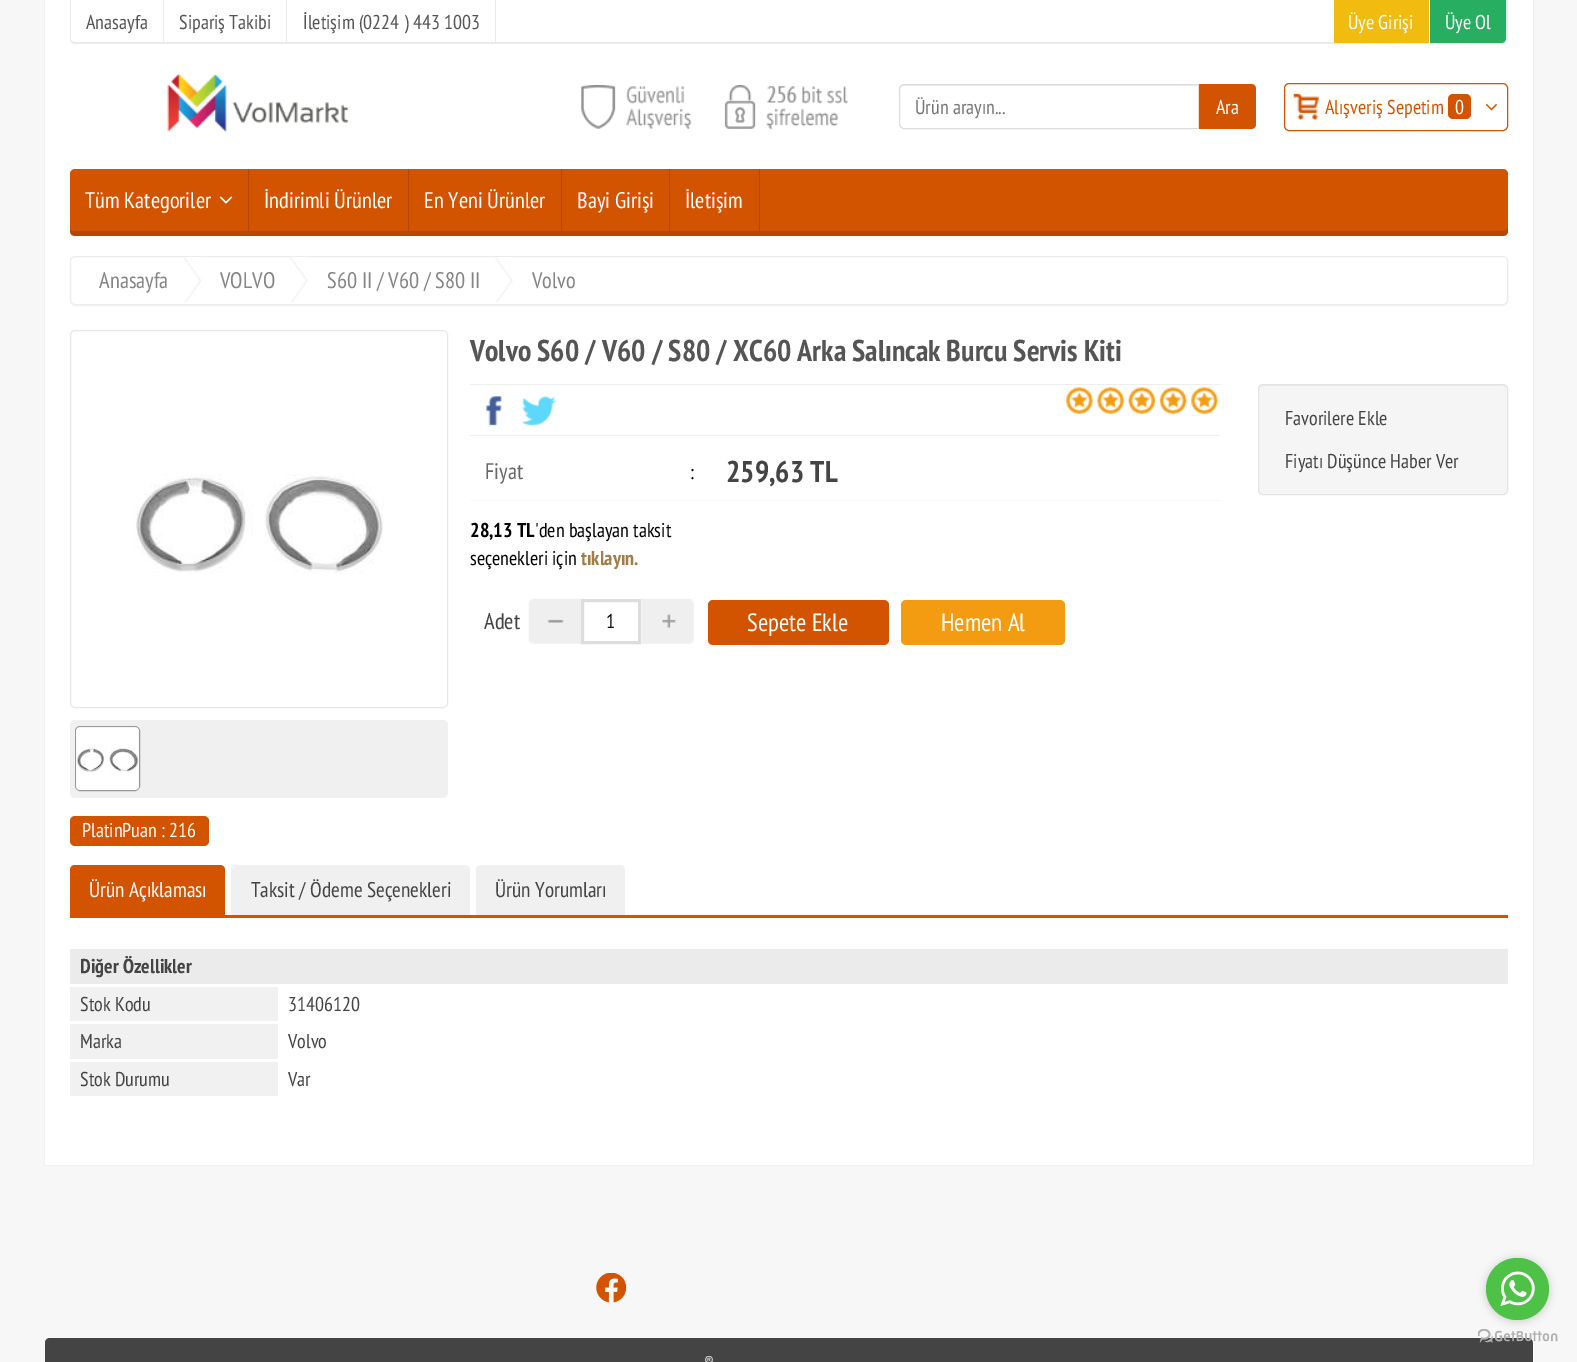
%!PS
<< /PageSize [1577 1362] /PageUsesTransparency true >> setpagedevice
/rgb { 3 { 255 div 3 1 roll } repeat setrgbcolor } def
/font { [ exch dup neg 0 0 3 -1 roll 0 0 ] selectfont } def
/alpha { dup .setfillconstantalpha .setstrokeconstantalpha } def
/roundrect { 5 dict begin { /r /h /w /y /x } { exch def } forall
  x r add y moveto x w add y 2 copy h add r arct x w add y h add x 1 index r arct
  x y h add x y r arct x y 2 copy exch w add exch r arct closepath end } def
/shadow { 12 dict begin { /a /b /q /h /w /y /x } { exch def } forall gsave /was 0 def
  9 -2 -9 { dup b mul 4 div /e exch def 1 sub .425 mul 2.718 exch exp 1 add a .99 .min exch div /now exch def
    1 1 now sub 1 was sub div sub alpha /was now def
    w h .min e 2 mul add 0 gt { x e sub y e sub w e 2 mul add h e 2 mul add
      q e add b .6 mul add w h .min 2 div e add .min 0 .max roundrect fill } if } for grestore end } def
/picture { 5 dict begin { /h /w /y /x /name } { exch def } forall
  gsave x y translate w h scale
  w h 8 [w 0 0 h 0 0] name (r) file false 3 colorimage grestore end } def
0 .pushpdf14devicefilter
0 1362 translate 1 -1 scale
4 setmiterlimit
247 247 247 rgb
0 0 1577 1362 rectfill
[
  [45 0 1488 1165 255 255 255]
  [1533 0 1 1165 240 240 240]
  [44 0 1 1165 240 240 240]
] { aload pop rgb rectfill } forall
235 235 235 rgb
70 0 moveto 1508 0 lineto 1508 39 lineto 1508 42 1505 44 1502 44 curveto 75 44 lineto 72 44 70 42 70 39 curveto closepath 71 0 moveto 1506 0 lineto 1506 39 lineto 1506 41 1505 42 1502 42 curveto 75 42 lineto 73 42 71 41 71 39 curveto closepath eofill
[
  [163 0 1 43 235 235 235]
  [286 0 1 43 235 235 235]
  [495 0 1 43 235 235 235]
  [1334 0 95 43 241 187 15]
  [1333 42 1 1 255 255 255]
] { aload pop rgb rectfill } forall
39 174 96 rgb
1429 0 moveto 1506 0 lineto 1506 38 lineto 1506 41 1504 43 1501 43 curveto 1429 43 lineto closepath fill
255 255 255 rgb
1429 0 1 43 rectfill
(img/1.rgb) 167 73 182 59 picture
(img/2.rgb) 581 85 267 44 picture
236 236 236 rgb
904 86 moveto 1198 86 lineto 1198 85 lineto 904 85 lineto 901 85 900 87 900 90 curveto 900 88 902 86 904 86 curveto closepath fill
221 221 221 rgb
904 84.5 moveto 1198.5 84.5 lineto 1198.5 128.5 lineto 904 128.5 lineto 901.5 128.5 899.5 126.5 899.5 124 curveto 899.5 89 lineto 899.5 86.5 901.5 84.5 904 84.5 curveto closepath stroke
211 84 0 rgb
1199 84 moveto 1251 84 lineto 1254 84 1256 86 1256 89 curveto 1256 124 lineto 1256 127 1254 129 1251 129 curveto 1199 129 lineto closepath fill
(img/3.rgb) 1293 93 26 27 picture
1284.5 83.5 223 47 4.5 roundrect stroke
1448 94 23 25 5 roundrect fill
(img/4.rgb) 1485 103 12 8 picture
70 169 1438 62 5 roundrect fill
180 72 0 rgb
70 226 moveto 70 231 lineto 70 234 72 236 75 236 curveto 1503 236 lineto 1506 236 1508 234 1508 231 curveto 1508 179 lineto 1508 177 lineto 1508 226 lineto 1508 229 1505 231 1502 231 curveto 75 231 lineto 72 231 70 229 70 226 curveto closepath fill
248 169 1 62 rectfill
(img/5.rgb) 219 196 14 8 picture
[
  [408 169 1 62 180 72 0]
  [561 169 1 62 180 72 0]
  [669 169 1 62 180 72 0]
  [759 169 1 62 180 72 0]
] { aload pop rgb rectfill } forall
gsave
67 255 moveto 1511 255 lineto 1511 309 lineto 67 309 lineto closepath 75 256 moveto 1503 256 lineto 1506 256 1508 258 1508 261 curveto 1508 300 lineto 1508 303 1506 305 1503 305 curveto 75 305 lineto 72 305 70 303 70 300 curveto 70 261 lineto 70 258 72 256 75 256 curveto closepath eoclip newpath
0 0 0 rgb
70 258 1438 48 5 0.5 0.05 shadow
grestore
236 236 236 rgb
70.5 256.5 1437 48 4.5 roundrect stroke
(img/6.rgb) 184 257 18 46 picture
(img/7.rgb) 290 257 18 46 picture
(img/8.rgb) 495 257 18 46 picture
238 238 238 rgb
470 384 750 1 rectfill
470 435 750 1 rectfill
(img/9.rgb) 486 396 16 30 picture
(img/10.rgb) 521 396 36 30 picture
(img/11.rgb) 1066 387 152 27 picture
245 245 245 rgb
1258 384 250 111 5 roundrect fill
233 233 233 rgb
1262 386 moveto 1502 386 lineto 1505 386 1506 388 1506 390 curveto 1506 389 lineto 1506 387 1504 385 1502 385 curveto 1263 385 lineto 1261 385 1259 387 1259 389 curveto 1259 390 lineto 1259 388 1260 386 1262 386 curveto closepath fill
227 227 227 rgb
1258.5 384.5 249 110 4.5 roundrect stroke
247 247 247 rgb
470 500 751 1 rectfill
(img/12.rgb) 528 598 54 46 picture
221 221 221 rgb
3 setlinewidth
582.5 600.5 57 42 rectstroke
(img/13.rgb) 641 598 53 46 picture
211 84 0 rgb
708 600 181 45 5 roundrect fill
243 156 18 rgb
901 600 164 45 5 roundrect fill
231 231 231 rgb
1 setlinewidth
70.5 330.5 377 377 4.5 roundrect stroke
(img/14.rgb) 134 474 250 100 picture
240 240 240 rgb
70 720 378 78 5 roundrect fill
153 153 153 rgb
75.5 726.5 64 64 4.5 roundrect stroke
(img/15.rgb) 76 727 63 63 picture
211 84 0 rgb
70 816 139 30 5 roundrect fill
70 915 1438 3 rectfill
75 865 moveto 220 865 lineto 223 865 225 867 225 870 curveto 225 915 lineto 70 915 lineto 70 870 lineto 70 867 72 865 75 865 curveto closepath fill
240 240 240 rgb
236 865 moveto 465 865 lineto 468 865 470 867 470 870 curveto 470 915 lineto 231 915 lineto 231 870 lineto 231 867 233 865 236 865 curveto closepath fill
481 865 moveto 620 865 lineto 623 865 625 867 625 870 curveto 625 915 lineto 476 915 lineto 476 870 lineto 476 867 478 865 481 865 curveto closepath fill
[
  [70 949 1438 35 235 235 235]
  [70 987 208 34 241 241 241]
  [70 1024 208 35 241 241 241]
  [70 1062 208 34 241 241 241]
  [44 1165 1490 1 240 240 240]
] { aload pop rgb rectfill } forall
(img/16.rgb) 596 1273 30 30 picture
68 68 68 rgb
50 1338 moveto 1528 1338 lineto 1531 1338 1533 1340 1533 1343 curveto 1533 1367 lineto 45 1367 lineto 45 1343 lineto 45 1340 47 1338 50 1338 curveto closepath fill
(img/18.rgb) 1478 1329 80 14 picture
136 136 136 rgb
1486 1259 63 62 31 4.5 0.4 shadow
77 194 71 rgb
1486 1258 63 62 31 roundrect fill
(img/17.rgb) 1500 1271 35 36 picture
/PTSansNarrow-Regular 20 font
85 85 85 rgb
[
  [(Anasayfa) 86 29]
  [(Sipariş Takibi) 179 29]
  [(İletişim \(0224 \) 443 1003) 303 29]
] { aload pop moveto show } forall
255 255 255 rgb
1348 29 moveto (Üye Girişi) show
1445 29 moveto (Üye Ol) show
117 117 117 rgb
915 114 moveto (Ürün arayın...) show
255 255 255 rgb
1216 114 moveto (Ara) show
211 84 0 rgb
1325 114 moveto (Alışveriş Sepetim) show
255 255 255 rgb
1455 114 moveto (0) show
/PTSansNarrow-Regular 22.5 font
[
  [(Tüm Kategoriler) 85 208]
  [(İndirimli Ürünler) 264 208]
  [(En Yeni Ürünler) 424 208]
  [(Bayi Girişi) 577 208]
  [(İletişim) 685 208]
] { aload pop moveto show } forall
133 133 133 rgb
[
  [(Anasayfa) 99 288]
  [(VOLVO) 220 288]
  [(S60 II / V60 / S80 II) 327 288]
  [(Volvo) 532 288]
] { aload pop moveto show } forall
/PTSansNarrow-Bold 30 font
85 85 85 rgb
470 361 moveto (Volvo S60 / V60 / S80 / XC60 Arka Salıncak Burcu Servis Kiti) show
/PTSansNarrow-Regular 20 font
68 68 68 rgb
1285 425 moveto (Favorilere Ekle) show
1285 468 moveto (Fiyatı Düşünce Haber Ver) show
/PTSansNarrow-Regular 22.5 font
104 104 104 rgb
485 479 moveto (Fiyat) show
/PTSansNarrow-Regular 20 font
0 0 0 rgb
690 479 moveto (:) show
/PTSansNarrow-Bold 30 font
68 68 68 rgb
726 482 moveto (259,63 TL) show
/PTSansNarrow-Bold 20 font
0 0 0 rgb
470 537 moveto (28,13 TL) show
/PTSansNarrow-Regular 20 font
535 537 moveto ('den başlayan taksit) show
470 565 moveto (seçenekleri için) show
/PTSansNarrow-Bold 20 font
160 125 73 rgb
581 565 moveto (tıklayın.) show
/PTSansNarrow-Regular 22.5 font
68 68 68 rgb
484 629 moveto (Adet) show
/PTSansNarrow-Regular 20 font
0 0 0 rgb
606 628 moveto (1) show
/PTSansNarrow-Regular 25 font
255 255 255 rgb
747 631 moveto (Sepete Ekle) show
941 631 moveto (Hemen Al) show
/PTSansNarrow-Regular 20 font
82 837 moveto (PlatinPuan : 216) show
/PTSansNarrow-Regular 21.25 font
89 897 moveto (Ürün Açıklaması) show
68 68 68 rgb
251 897 moveto (Taksit / Ödeme Seçenekleri) show
495 897 moveto (Ürün Yorumları) show
/PTSansNarrow-Bold 20 font
80 973 moveto (Diğer Özellikler) show
/PTSansNarrow-Regular 20 font
[
  [(Stok Kodu) 80 1011]
  [(31406120) 288 1011]
  [(Marka) 80 1048]
  [(Volvo) 288 1048]
  [(Stok Durumu) 80 1086]
  [(Var) 288 1086]
] { aload pop moveto show } forall
/PTSansNarrow-Regular 17 font
238 238 238 rgb
704 1368 moveto (®) show
.poppdf14devicefilter showpage
